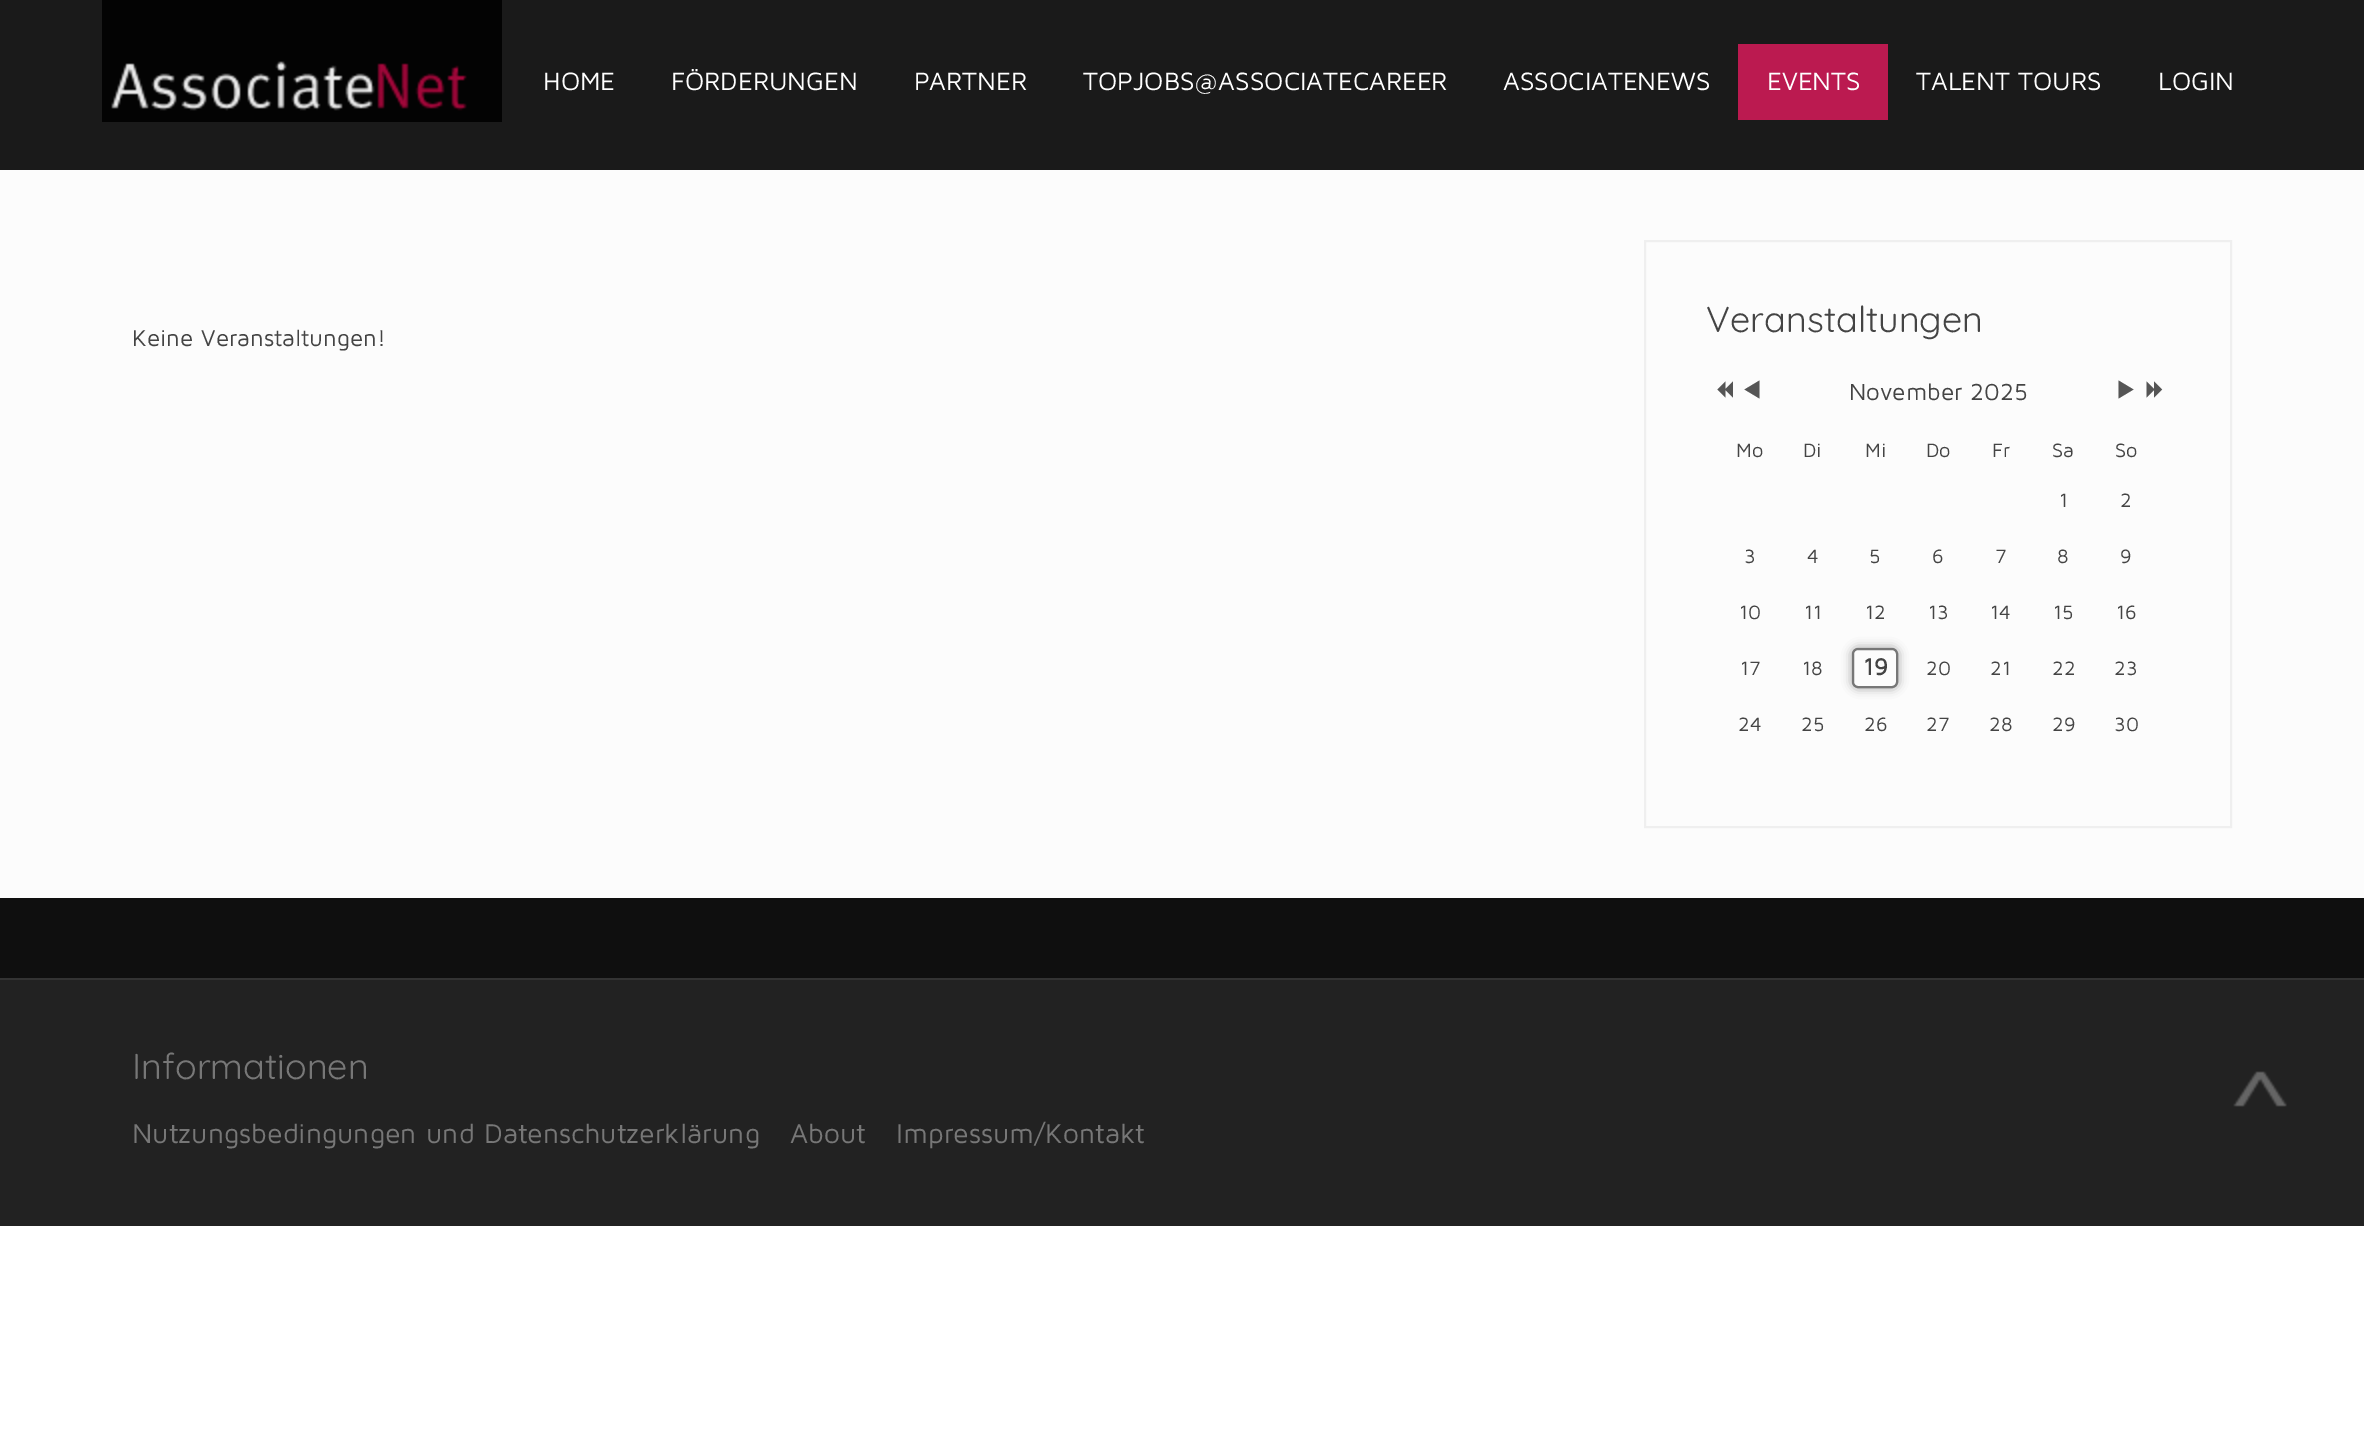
%!PS
<< /PageSize [2364 1439] /PageUsesTransparency true >> setpagedevice
/rgb { 3 { 255 div 3 1 roll } repeat setrgbcolor } def
/font { [ exch dup neg 0 0 3 -1 roll 0 0 ] selectfont } def
/alpha { dup .setfillconstantalpha .setstrokeconstantalpha } def
/roundrect { 5 dict begin { /r /h /w /y /x } { exch def } forall
  x r add y moveto x w add y 2 copy h add r arct x w add y h add x 1 index r arct
  x y h add x y r arct x y 2 copy exch w add exch r arct closepath end } def
/shadow { 12 dict begin { /a /b /q /h /w /y /x } { exch def } forall gsave /was 0 def
  9 -2 -9 { dup b mul 4 div /e exch def 1 sub .425 mul 2.718 exch exp 1 add a .99 .min exch div /now exch def
    1 1 now sub 1 was sub div sub alpha /was now def
    w h .min e 2 mul add 0 gt { x e sub y e sub w e 2 mul add h e 2 mul add
      q e add b .6 mul add w h .min 2 div e add .min 0 .max roundrect fill } if } for grestore end } def
/picture { 5 dict begin { /h /w /y /x /name } { exch def } forall
  gsave x y translate w h scale
  w h 8 [w 0 0 h 0 0] name (r) file false 3 colorimage grestore end } def
0 .pushpdf14devicefilter
0 1439 translate 1 -1 scale
4 setmiterlimit
255 255 255 rgb
0 0 2364 1439 rectfill
26 26 26 rgb
0 0 2364 170 rectfill
(img/1.rgb) 102 0 400 122 picture
187 26 80 rgb
1738 44 150 76 rectfill
252 252 252 rgb
0 170 2364 728 rectfill
239 239 239 rgb
2 setlinewidth
1645 241 586 586 rectstroke
(img/2.rgb) 1717 381 16 17 picture
85 85 85 rgb
1759.5 398.5 moveto 1744.5 389.5 lineto 1759.5 380.5 lineto closepath fill
2118.5 380.5 moveto 2133.5 389.5 lineto 2118.5 398.5 lineto closepath fill
(img/3.rgb) 2146 381 17 17 picture
gsave
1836 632 moveto 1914 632 lineto 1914 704 lineto 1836 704 lineto closepath 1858 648 moveto 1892 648 lineto 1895.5 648 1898 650.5 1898 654 curveto 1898 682 lineto 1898 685.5 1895.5 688 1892 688 curveto 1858 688 lineto 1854.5 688 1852 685.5 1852 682 curveto 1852 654 lineto 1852 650.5 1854.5 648 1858 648 curveto closepath eoclip newpath
153 153 153 rgb
1852 648 46 40 6 5 1 shadow
grestore
119 119 119 rgb
1853 649 44 38 5 roundrect stroke
[
  [0 898 2364 80 15 15 15]
  [0 980 2364 246 34 34 34]
  [0 978 2364 2 51 51 51]
] { aload pop rgb rectfill } forall
(img/4.rgb) 2233 1071 54 36 picture
/MavenPro-Regular 26 font
255 255 255 rgb
[
  [(HOME) 543 90]
  [(FÖRDERUNGEN) 671 90]
  [(PARTNER) 914 90]
  [(TOPJOBS@ASSOCIATECAREER) 1083 90]
  [(ASSOCIATENEWS) 1503 90]
  [(EVENTS) 1767 90]
  [(TALENT TOURS) 1916 90]
  [(LOGIN) 2158 90]
] { aload pop moveto show } forall
/MavenPro-Regular 23.75 font
68 68 68 rgb
132 346 moveto (Keine Veranstaltungen!) show
/Quicksand-Regular 36 font
1706 332 moveto (Veranstaltungen) show
/MavenPro-Regular 24 font
1849 400 moveto (November 2025) show
/MavenPro-Regular 20 font
[
  [(Mo) 1736 457]
  [(Di) 1803 457]
  [(Mi) 1865 457]
  [(Do) 1926 457]
  [(Fr) 1992 457]
  [(Sa) 2052 457]
  [(So) 2115 457]
  [(1) 2059 507]
  [(2) 2120 507]
  [(3) 1744 563]
  [(4) 1807 563]
  [(5) 1869 563]
  [(6) 1932 563]
  [(7) 1995 563]
  [(8) 2057 563]
  [(9) 2120 563]
  [(10) 1739 619]
  [(11) 1804 619]
  [(12) 1865 619]
  [(13) 1928 619]
  [(14) 1990 619]
  [(15) 2053 619]
  [(16) 2116 619]
  [(17) 1740 675]
  [(18) 1802 675]
] { aload pop moveto show } forall
/MavenPro-Bold 24 font
1863 675 moveto (19) show
/MavenPro-Regular 20 font
[
  [(20) 1926 675]
  [(21) 1990 675]
  [(22) 2052 675]
  [(23) 2114 675]
  [(24) 1738 731]
  [(25) 1801 731]
  [(26) 1864 731]
  [(27) 1926 731]
  [(28) 1989 731]
  [(29) 2052 731]
  [(30) 2114 731]
] { aload pop moveto show } forall
/Quicksand-Regular 36 font
119 119 119 rgb
132 1079 moveto (Informationen) show
/MavenPro-Regular 28 font
[
  [(Nutzungsbedingungen und Datenschutzerklärung) 132 1143]
  [(About) 790 1143]
  [(Impressum/Kontakt) 896 1143]
] { aload pop moveto show } forall
.poppdf14devicefilter showpage
